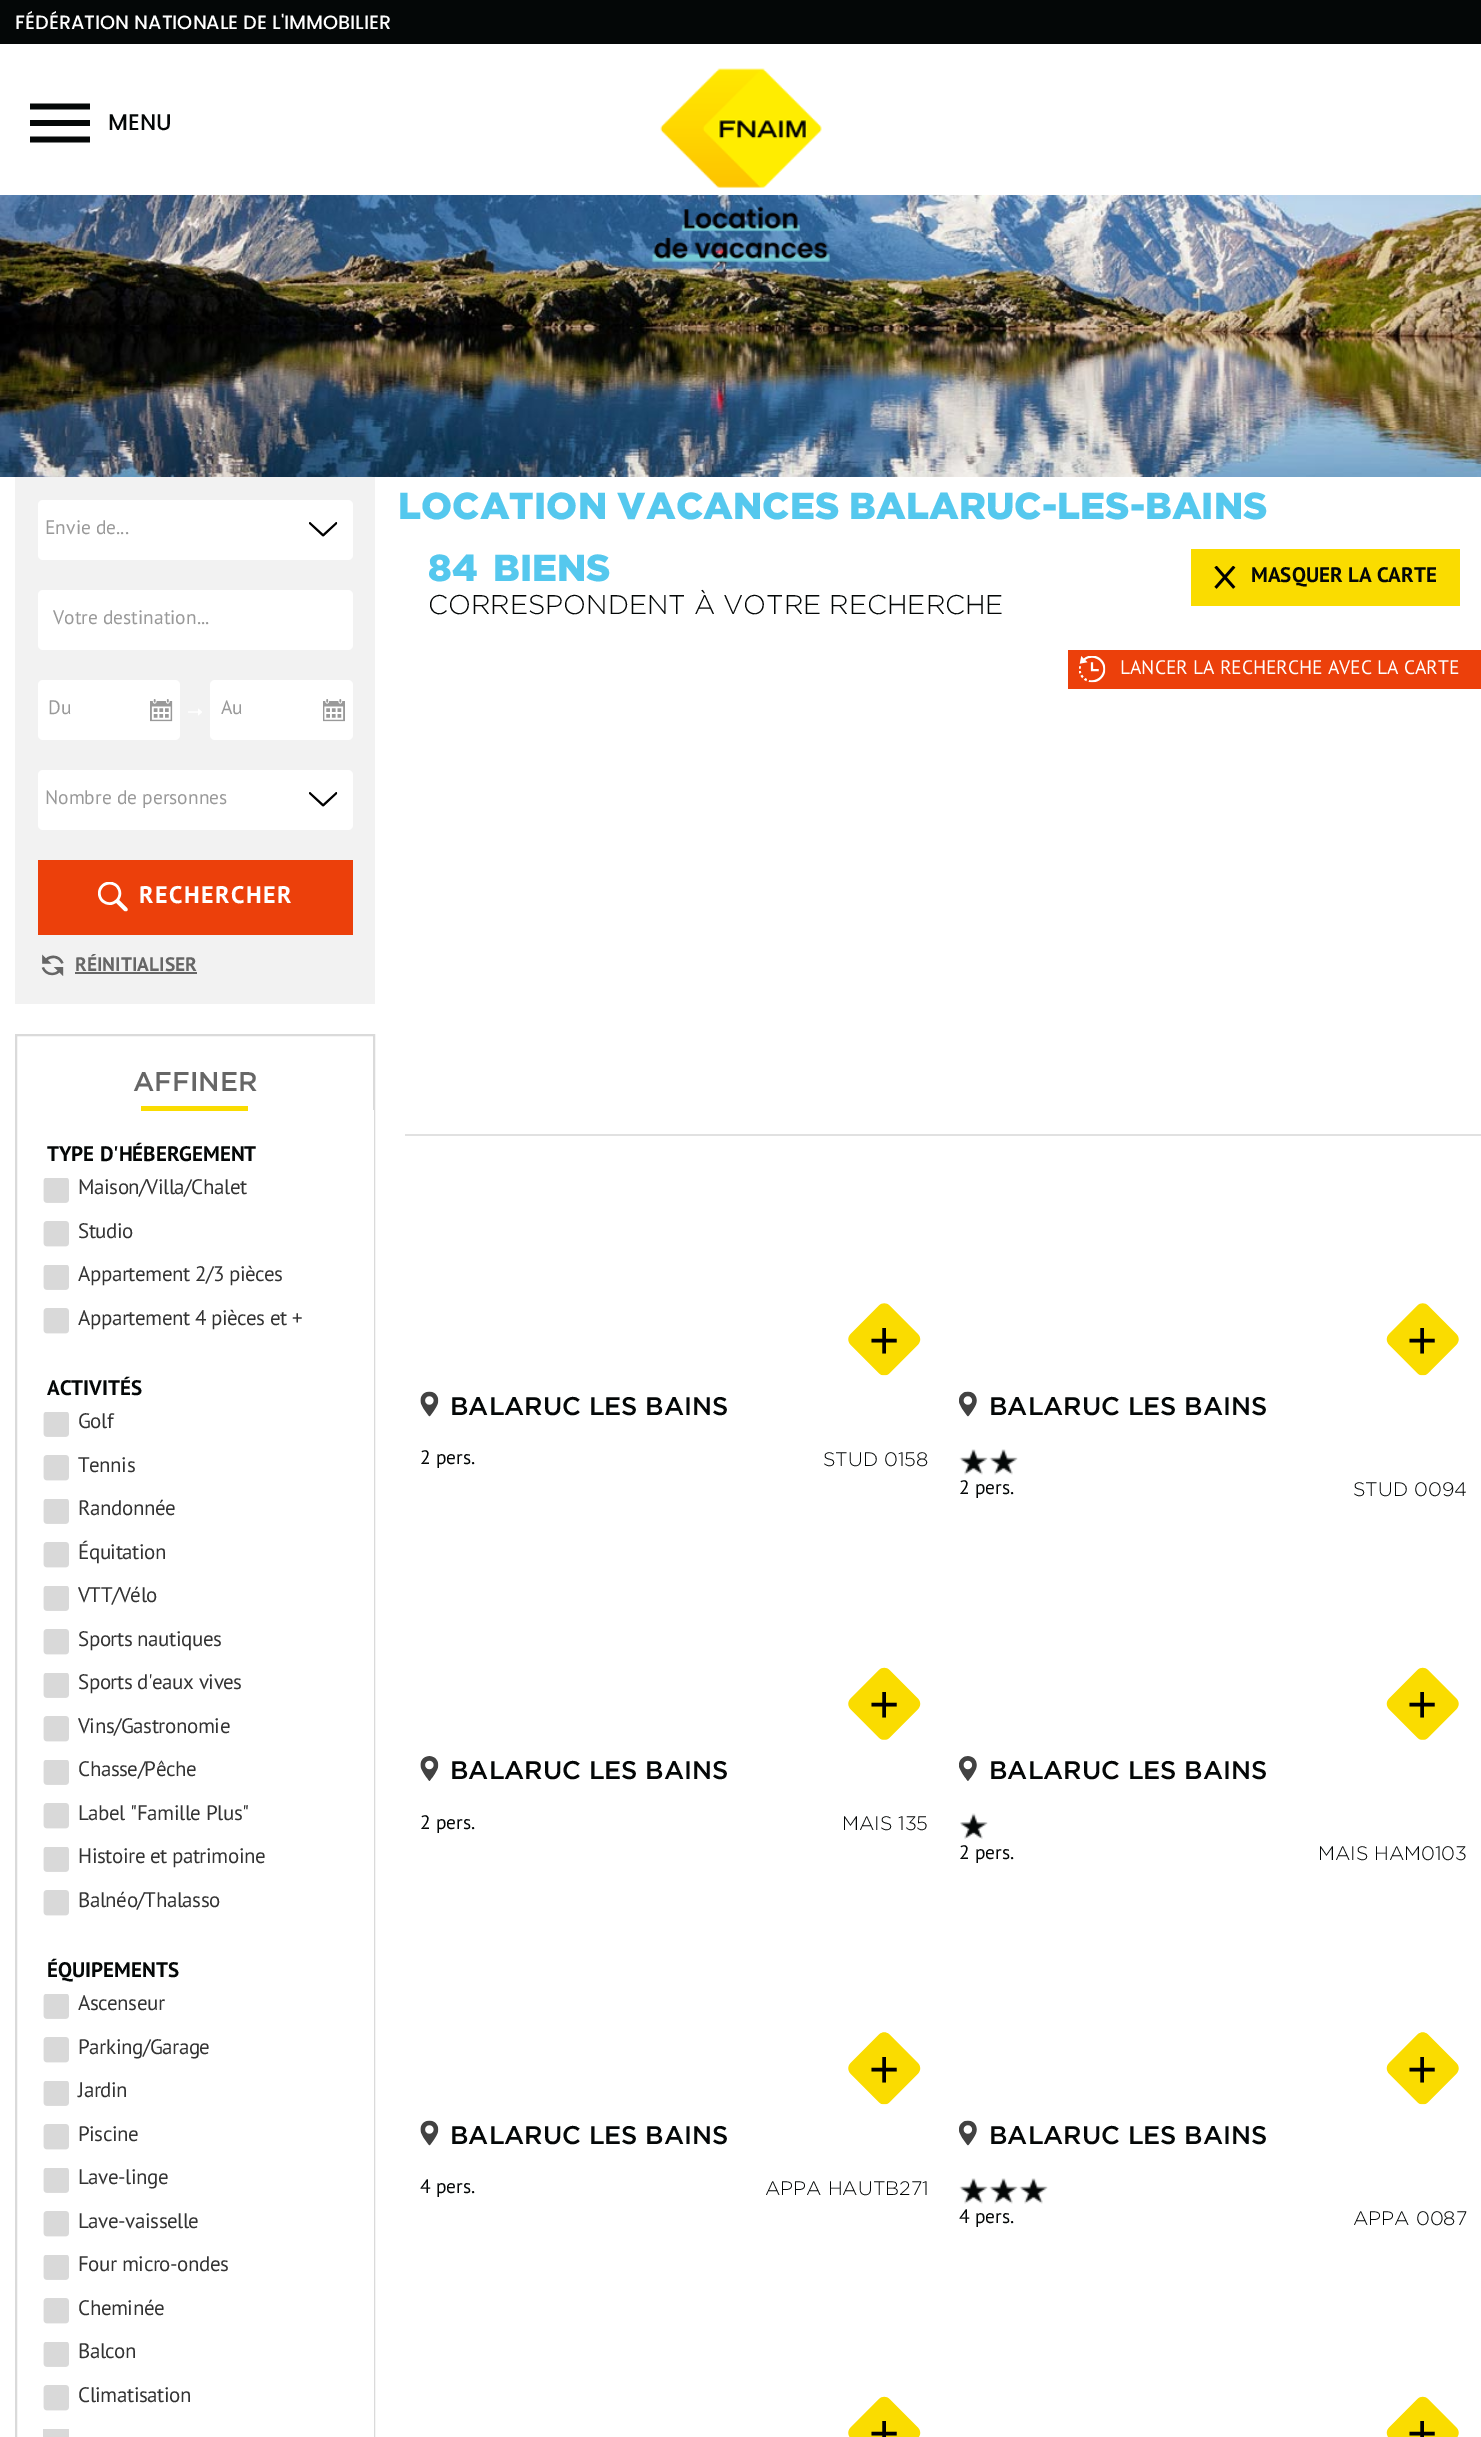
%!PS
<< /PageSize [1481 2437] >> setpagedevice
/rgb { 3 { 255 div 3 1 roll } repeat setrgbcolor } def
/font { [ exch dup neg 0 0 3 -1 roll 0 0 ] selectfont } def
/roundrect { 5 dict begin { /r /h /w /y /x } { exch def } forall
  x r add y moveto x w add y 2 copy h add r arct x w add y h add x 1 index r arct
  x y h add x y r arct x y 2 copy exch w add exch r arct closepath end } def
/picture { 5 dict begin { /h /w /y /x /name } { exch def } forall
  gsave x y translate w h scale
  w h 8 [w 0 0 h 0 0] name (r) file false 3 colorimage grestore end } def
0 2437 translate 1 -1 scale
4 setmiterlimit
255 255 255 rgb
0 0 1481 2437 rectfill
4 7 7 rgb
0 0 1481 44 rectfill
(img/1.rgb) 30 103 60 40 picture
(img/3.rgb) 0 195 1481 282 picture
(img/2.rgb) 652 68 178 195 picture
242 242 242 rgb
15 477 360 527 rectfill
255 255 255 rgb
38 500 315 60 5 roundrect fill
(img/4.rgb) 309 522 29 15 picture
38 590 315 60 5 roundrect fill
(img/5.rgb) 188 708 14 8 picture
38 680 142 60 5 roundrect fill
(img/6.rgb) 150 699 23 23 picture
210 680 143 60 5 roundrect fill
(img/7.rgb) 323 699 22 23 picture
38 770 315 60 5 roundrect fill
(img/4.rgb) 309 792 29 15 picture
236 64 11 rgb
38 860 315 75 rectfill
(img/8.rgb) 98 882 30 30 picture
(img/9.rgb) 41 954 23 22 picture
102 102 102 rgb
75 972 122 2 rectfill
218 218 218 rgb
2 setlinewidth
16 1035 358 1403 rectstroke
250 220 0 rgb
141 1106 107 5 rectfill
255 255 255 rgb
373 1110 1 1327 rectfill
(img/10.rgb) 43 1178 26 25 picture
(img/11.rgb) 43 1221 26 26 picture
(img/10.rgb) 43 1265 26 25 picture
(img/11.rgb) 43 1308 26 26 picture
(img/10.rgb) 43 1412 26 25 picture
(img/11.rgb) 43 1455 26 26 picture
(img/10.rgb) 43 1499 26 25 picture
(img/11.rgb) 43 1542 26 26 picture
(img/10.rgb) 43 1586 26 25 picture
(img/11.rgb) 43 1629 26 26 picture
(img/10.rgb) 43 1673 26 25 picture
(img/11.rgb) 43 1716 26 26 picture
(img/10.rgb) 43 1760 26 25 picture
(img/11.rgb) 43 1803 26 26 picture
(img/10.rgb) 43 1847 26 25 picture
(img/11.rgb) 43 1890 26 26 picture
(img/10.rgb) 43 1994 26 25 picture
(img/11.rgb) 43 2037 26 26 picture
(img/10.rgb) 43 2081 26 25 picture
(img/11.rgb) 43 2124 26 26 picture
(img/10.rgb) 43 2168 26 25 picture
(img/11.rgb) 43 2211 26 26 picture
(img/10.rgb) 43 2255 26 25 picture
(img/11.rgb) 43 2298 26 26 picture
(img/10.rgb) 43 2342 26 25 picture
(img/11.rgb) 43 2385 26 26 picture
217 217 217 rgb
43 2429 26 8 rectfill
250 220 0 rgb
1191 549 269 57 rectfill
(img/12.rgb) 1214 566 22 23 picture
236 64 11 rgb
1068 650 413 39 rectfill
(img/13.rgb) 1079 656 27 27 picture
225 225 225 rgb
405 1134 1076 2 rectfill
(img/14.rgb) 848 1303 73 73 picture
(img/15.rgb) 420 1391 19 26 picture
(img/16.rgb) 1386 1303 73 73 picture
(img/17.rgb) 959 1391 18 26 picture
(img/18.rgb) 959 1449 59 26 picture
(img/19.rgb) 848 1667 73 73 picture
(img/20.rgb) 420 1756 19 25 picture
(img/21.rgb) 1386 1667 73 73 picture
(img/22.rgb) 959 1756 18 25 picture
(img/23.rgb) 960 1813 28 26 picture
(img/24.rgb) 848 2032 73 73 picture
(img/15.rgb) 420 2120 19 26 picture
(img/25.rgb) 1386 2032 73 73 picture
(img/17.rgb) 959 2120 18 26 picture
(img/26.rgb) 959 2178 89 26 picture
(img/27.rgb) 848 2396 73 41 picture
(img/28.rgb) 1386 2396 73 41 picture
/Poppins-Medium 19.25 font
255 255 255 rgb
15 29 moveto (FÉDÉRATION NATIONALE DE L'IMMOBILIER) show
/Poppins-Medium 22.5 font
4 7 7 rgb
108 130 moveto (MENU) show
/PTSans-Regular 19.5 font
153 153 153 rgb
[
  [(Envie de...) 45 534]
  [(Votre destination...) 53 624]
  [(Du) 48 714]
  [(Au) 221 714]
  [(Nombre de personnes) 45 804]
] { aload pop moveto show } forall
/PTSans-Bold 24 font
255 255 255 rgb
139 903 moveto 1.5 0 (RECHERCHER) ashow
/PTSans-Bold 19.5 font
102 102 102 rgb
75 971 moveto (RÉINITIALISER) show
/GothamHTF-Medium 27 font
133 1091 moveto (AFFINER) show
/PTSans-Bold 21 font
4 7 7 rgb
47 1161 moveto (TYPE D'HÉBERGEMENT) show
/PTSans-Regular 21 font
51 51 51 rgb
78 1194 moveto -0.45 0 (Maison/Villa/Chalet) ashow
78 1238 moveto -0.45 0 (Studio) ashow
78 1281 moveto -0.45 0 (Appartement 2/3 pièces) ashow
78 1325 moveto -0.45 0 (Appartement 4 pièces et +) ashow
/PTSans-Bold 21 font
4 7 7 rgb
47 1395 moveto (ACTIVITÉS) show
/PTSans-Regular 21 font
51 51 51 rgb
78 1428 moveto -0.45 0 (Golf) ashow
78 1472 moveto -0.45 0 (Tennis) ashow
78 1515 moveto -0.45 0 (Randonnée) ashow
78 1559 moveto -0.45 0 (Équitation) ashow
78 1602 moveto -0.45 0 (VTT/Vélo) ashow
78 1646 moveto -0.45 0 (Sports nautiques) ashow
78 1689 moveto -0.45 0 (Sports d'eaux vives) ashow
78 1733 moveto -0.45 0 (Vins/Gastronomie) ashow
78 1776 moveto -0.45 0 (Chasse/Pêche) ashow
78 1820 moveto -0.45 0 (Label "Famille Plus") ashow
78 1863 moveto -0.45 0 (Histoire et patrimoine) ashow
78 1907 moveto -0.45 0 (Balnéo/Thalasso) ashow
/PTSans-Bold 21 font
4 7 7 rgb
47 1977 moveto (ÉQUIPEMENTS) show
/PTSans-Regular 21 font
51 51 51 rgb
78 2010 moveto -0.45 0 (Ascenseur) ashow
78 2054 moveto -0.45 0 (Parking/Garage) ashow
78 2097 moveto -0.45 0 (Jardin) ashow
78 2141 moveto -0.45 0 (Piscine) ashow
78 2184 moveto -0.45 0 (Lave-linge) ashow
78 2228 moveto -0.45 0 (Lave-vaisselle) ashow
78 2271 moveto -0.45 0 (Four micro-ondes) ashow
78 2315 moveto -0.45 0 (Cheminée) ashow
78 2358 moveto -0.45 0 (Balcon) ashow
78 2402 moveto -0.45 0 (Climatisation) ashow
/GothamHTF-Black 37.5 font
85 200 238 rgb
[
  [(LOCATION VACANCES BALARUC-LES-BAINS) 398 519]
  [(84) 428 581]
  [(BIENS) 493 581]
] { aload pop moveto show } forall
/GothamHTF-Light 27 font
4 7 7 rgb
428 614 moveto (CORRESPONDENT À VOTRE RECHERCHE) show
/PTSans-Bold 21 font
1251 582 moveto (MASQUER LA CARTE) show
/PTSans-Regular 19.5 font
255 255 255 rgb
1120 674 moveto (LANCER LA RECHERCHE AVEC LA CARTE) show
/LiberationSans-Regular 52 font
0 0 0 rgb
869 1358 moveto (+) show
/PTSans-Regular 19.5 font
4 7 7 rgb
420 1464 moveto (2 pers.) show
/GothamHTF-Light 19.5 font
823 1466 moveto (STUD 0158) show
/GothamHTF-Medium 25.5 font
450 1415 moveto (BALARUC LES BAINS) show
/LiberationSans-Regular 52 font
0 0 0 rgb
1407 1358 moveto (+) show
/PTSans-Regular 19.5 font
4 7 7 rgb
959 1494 moveto (2 pers.) show
/GothamHTF-Light 19.5 font
1353 1496 moveto (STUD 0094) show
/GothamHTF-Medium 25.5 font
989 1415 moveto (BALARUC LES BAINS) show
/LiberationSans-Regular 52 font
0 0 0 rgb
869 1722 moveto (+) show
/PTSans-Regular 19.5 font
4 7 7 rgb
420 1829 moveto (2 pers.) show
/GothamHTF-Light 19.5 font
842 1830 moveto (MAIS 135) show
/GothamHTF-Medium 25.5 font
450 1779 moveto (BALARUC LES BAINS) show
/LiberationSans-Regular 52 font
0 0 0 rgb
1407 1722 moveto (+) show
/PTSans-Regular 19.5 font
4 7 7 rgb
959 1859 moveto (2 pers.) show
/GothamHTF-Light 19.5 font
1318 1860 moveto (MAIS HAM0103) show
/GothamHTF-Medium 25.5 font
989 1779 moveto (BALARUC LES BAINS) show
/LiberationSans-Regular 52 font
0 0 0 rgb
869 2087 moveto (+) show
/PTSans-Regular 19.5 font
4 7 7 rgb
420 2193 moveto (4 pers.) show
/GothamHTF-Light 19.5 font
765 2195 moveto (APPA HAUTB271) show
/GothamHTF-Medium 25.5 font
450 2144 moveto (BALARUC LES BAINS) show
/LiberationSans-Regular 52 font
0 0 0 rgb
1407 2087 moveto (+) show
/PTSans-Regular 19.5 font
4 7 7 rgb
959 2223 moveto (4 pers.) show
/GothamHTF-Light 19.5 font
1353 2225 moveto (APPA 0087) show
/GothamHTF-Medium 25.5 font
989 2144 moveto (BALARUC LES BAINS) show
/LiberationSans-Regular 52 font
0 0 0 rgb
869 2451 moveto (+) show
1407 2451 moveto (+) show
showpage
